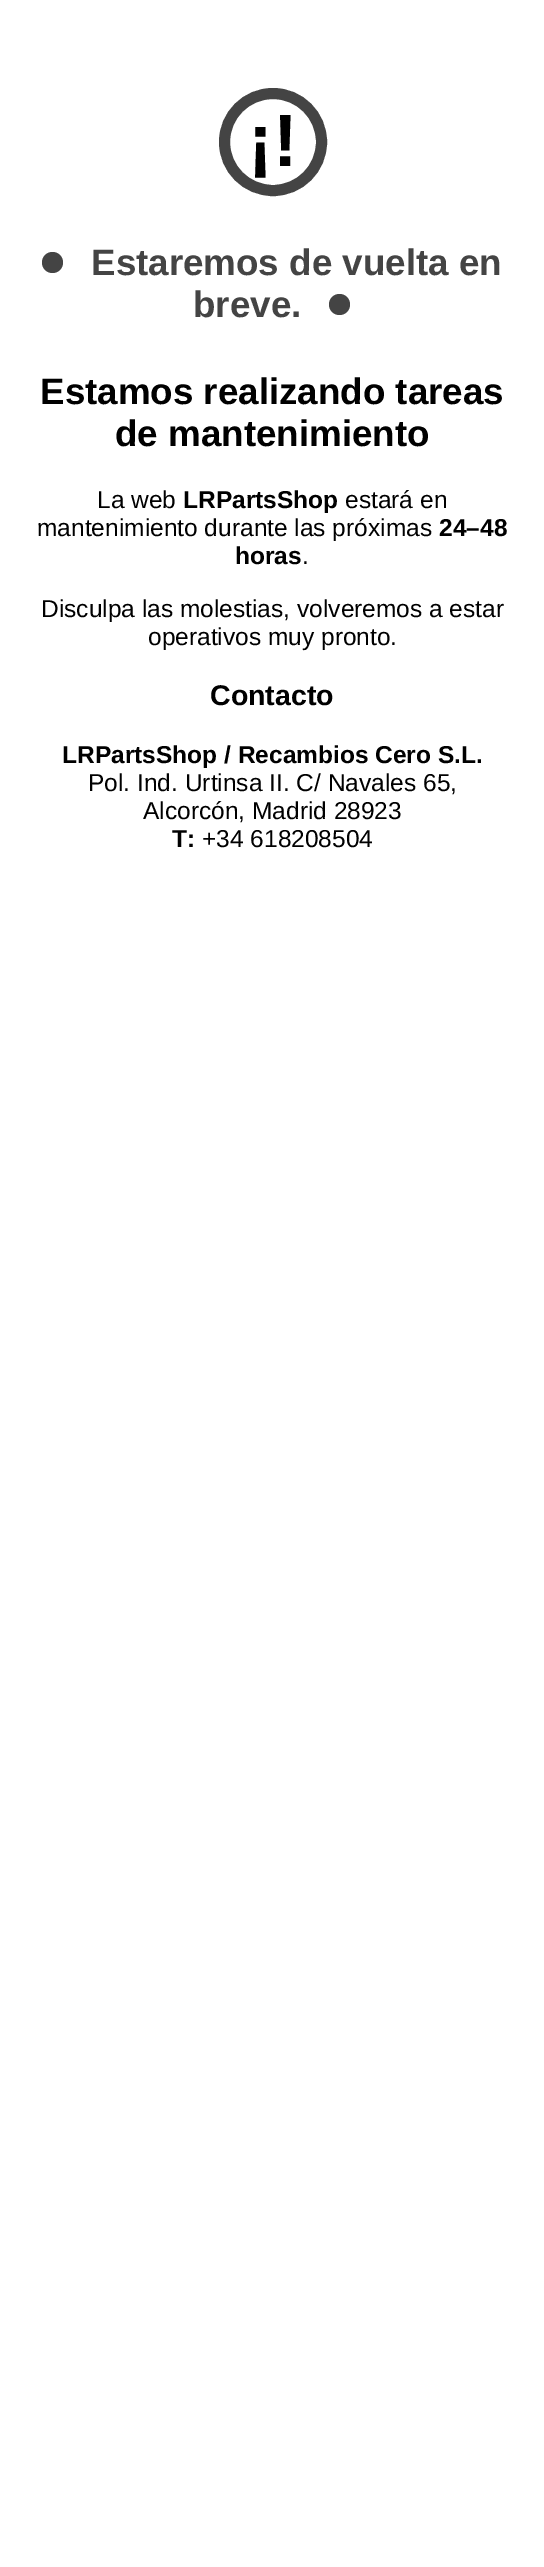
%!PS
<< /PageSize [544 2567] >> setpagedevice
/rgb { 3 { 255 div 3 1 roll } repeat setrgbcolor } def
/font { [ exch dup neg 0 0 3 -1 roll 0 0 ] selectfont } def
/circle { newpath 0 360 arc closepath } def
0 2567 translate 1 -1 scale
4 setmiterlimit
255 255 255 rgb
0 0 544 2567 rectfill
68 68 68 rgb
11 setlinewidth
273 142 48.5 circle stroke
52.5 262.5 10.5 circle fill
339.5 304.5 10.5 circle fill
/LiberationSans-Bold 74 font
0 0 0 rgb
248 166 moveto (¡!) show
/LiberationSans-Bold 36.75 font
68 68 68 rgb
91 275 moveto (Estaremos de vuelta en) show
193 317 moveto (breve.) show
0 0 0 rgb
40 404 moveto (Estamos realizando tareas) show
115 446 moveto (de mantenimiento) show
/LiberationSans-Regular 24.5 font
97 508 moveto (La web) show
/LiberationSans-Bold 24.5 font
183 508 moveto (LRPartsShop) show
/LiberationSans-Regular 24.5 font
345 508 moveto (estará en) show
37 536 moveto (mantenimiento durante las próximas) show
/LiberationSans-Bold 24.5 font
439 536 moveto (24–48) show
235 564 moveto (horas) show
/LiberationSans-Regular 24.5 font
[
  [(.) 302 564]
  [(Disculpa las molestias, volveremos a estar) 41 617]
  [(operativos muy pronto.) 148 645]
] { aload pop moveto show } forall
/LiberationSans-Bold 28.5 font
210 705 moveto (Contacto) show
/LiberationSans-Bold 24.5 font
62 763 moveto (LRPartsShop / Recambios Cero S.L.) show
/LiberationSans-Regular 24.5 font
88 791 moveto (Pol. Ind. Urtinsa II. C/ Navales 65,) show
143 819 moveto (Alcorcón, Madrid 28923) show
/LiberationSans-Bold 24.5 font
172 847 moveto (T:) show
/LiberationSans-Regular 24.5 font
202 847 moveto (+34 618208504) show
showpage
